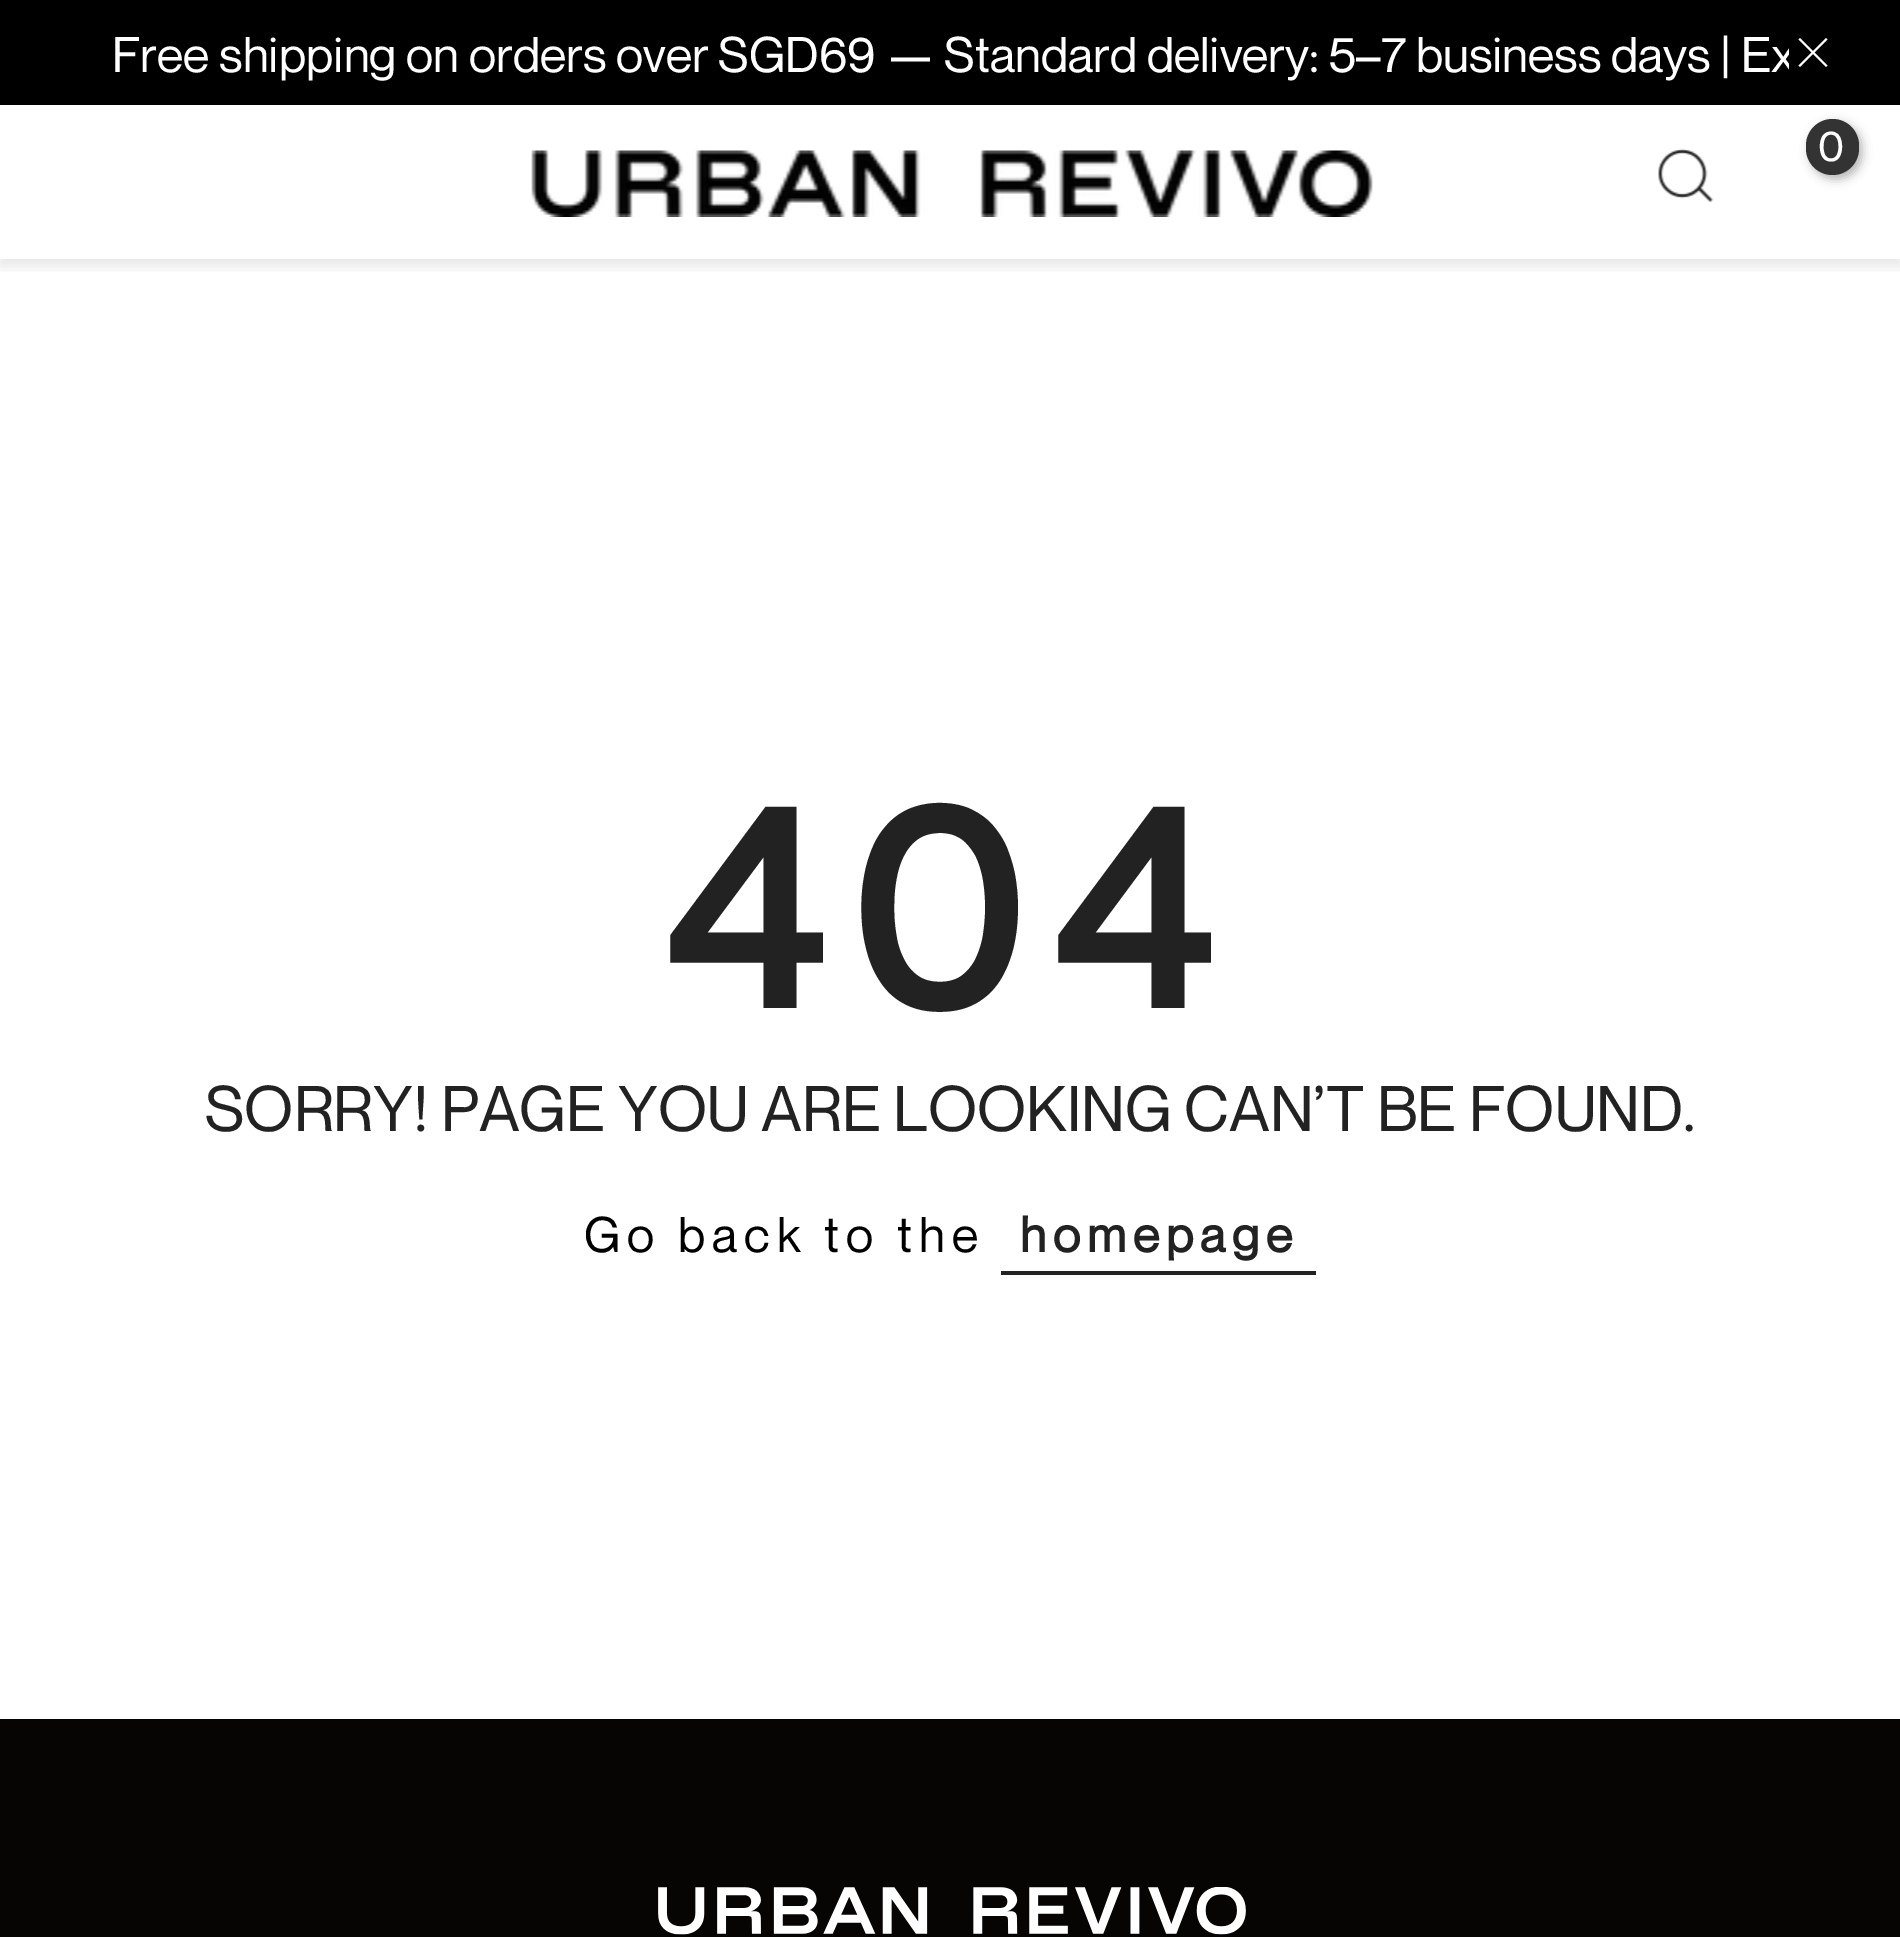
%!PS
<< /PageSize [1900 1937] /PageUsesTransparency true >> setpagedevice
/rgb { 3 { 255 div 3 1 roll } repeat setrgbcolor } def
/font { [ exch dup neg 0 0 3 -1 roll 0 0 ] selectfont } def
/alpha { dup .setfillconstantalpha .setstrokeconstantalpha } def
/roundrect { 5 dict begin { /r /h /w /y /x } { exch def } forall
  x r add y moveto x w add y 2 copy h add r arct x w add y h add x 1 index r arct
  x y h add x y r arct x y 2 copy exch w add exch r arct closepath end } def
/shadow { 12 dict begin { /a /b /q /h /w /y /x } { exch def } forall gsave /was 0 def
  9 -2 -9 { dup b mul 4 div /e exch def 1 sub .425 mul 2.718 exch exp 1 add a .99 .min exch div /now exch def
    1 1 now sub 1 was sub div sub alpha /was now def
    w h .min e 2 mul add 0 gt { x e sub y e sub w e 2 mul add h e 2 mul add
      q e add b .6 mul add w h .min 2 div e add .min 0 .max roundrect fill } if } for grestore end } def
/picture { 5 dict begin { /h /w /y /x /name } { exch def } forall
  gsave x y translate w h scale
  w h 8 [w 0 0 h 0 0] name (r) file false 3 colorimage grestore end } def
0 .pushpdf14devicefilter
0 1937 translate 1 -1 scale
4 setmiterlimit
255 255 255 rgb
0 0 1900 1937 rectfill
gsave
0 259 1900 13 rectclip
0 0 0 rgb
0 112 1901 154 0 7 0.1 shadow
grestore
0 0 0 rgb
0 0 1900 105 rectfill
255 255 255 rgb
1798.5 65.5 moveto 1826 38 lineto 1827.5 39.5 lineto 1800 67 lineto closepath eofill
1827.5 65.5 moveto 1800 38 lineto 1798.5 39.5 lineto 1826 67 lineto closepath eofill
(img/1.rgb) 1658 148 56 55 picture
0 0 0 rgb
1810 123 52 56 26 5 0.3 shadow
51 51 51 rgb
1806 119 53 56 26.5 roundrect fill
(img/2.rgb) 531 150 842 67 picture
34 34 34 rgb
1001 1271 315 4 rectfill
7 4 4 rgb
0 1719 1900 218 rectfill
(img/3.rgb) 658 1887 588 48 picture
/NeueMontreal-Regular 49 font
255 255 255 rgb
112 72 moveto (Free shipping on orders over SGD69 — Standard delivery: 5–7 business days |) show
gsave
112 18 1677 73 rectclip
1741 72 moveto (Ex) show
grestore
/NeueMontreal-Regular 42 font
1818 161 moveto (0) show
/NeueMontreal-Bold 280 font
34 34 34 rgb
663 1008 moveto 28 0 (404) ashow
/NeueMontreal-Regular 63 font
205 1131 moveto (SORRY! PAGE YOU ARE LOOKING CAN’T BE FOUND.) show
/NeueMontreal-Regular 49 font
0 0 0 rgb
584 1252 moveto 7 0 (Go back to the) ashow
/NeueMontreal-Bold 49 font
34 34 34 rgb
1020 1252 moveto 7 0 (homepage) ashow
.poppdf14devicefilter showpage
